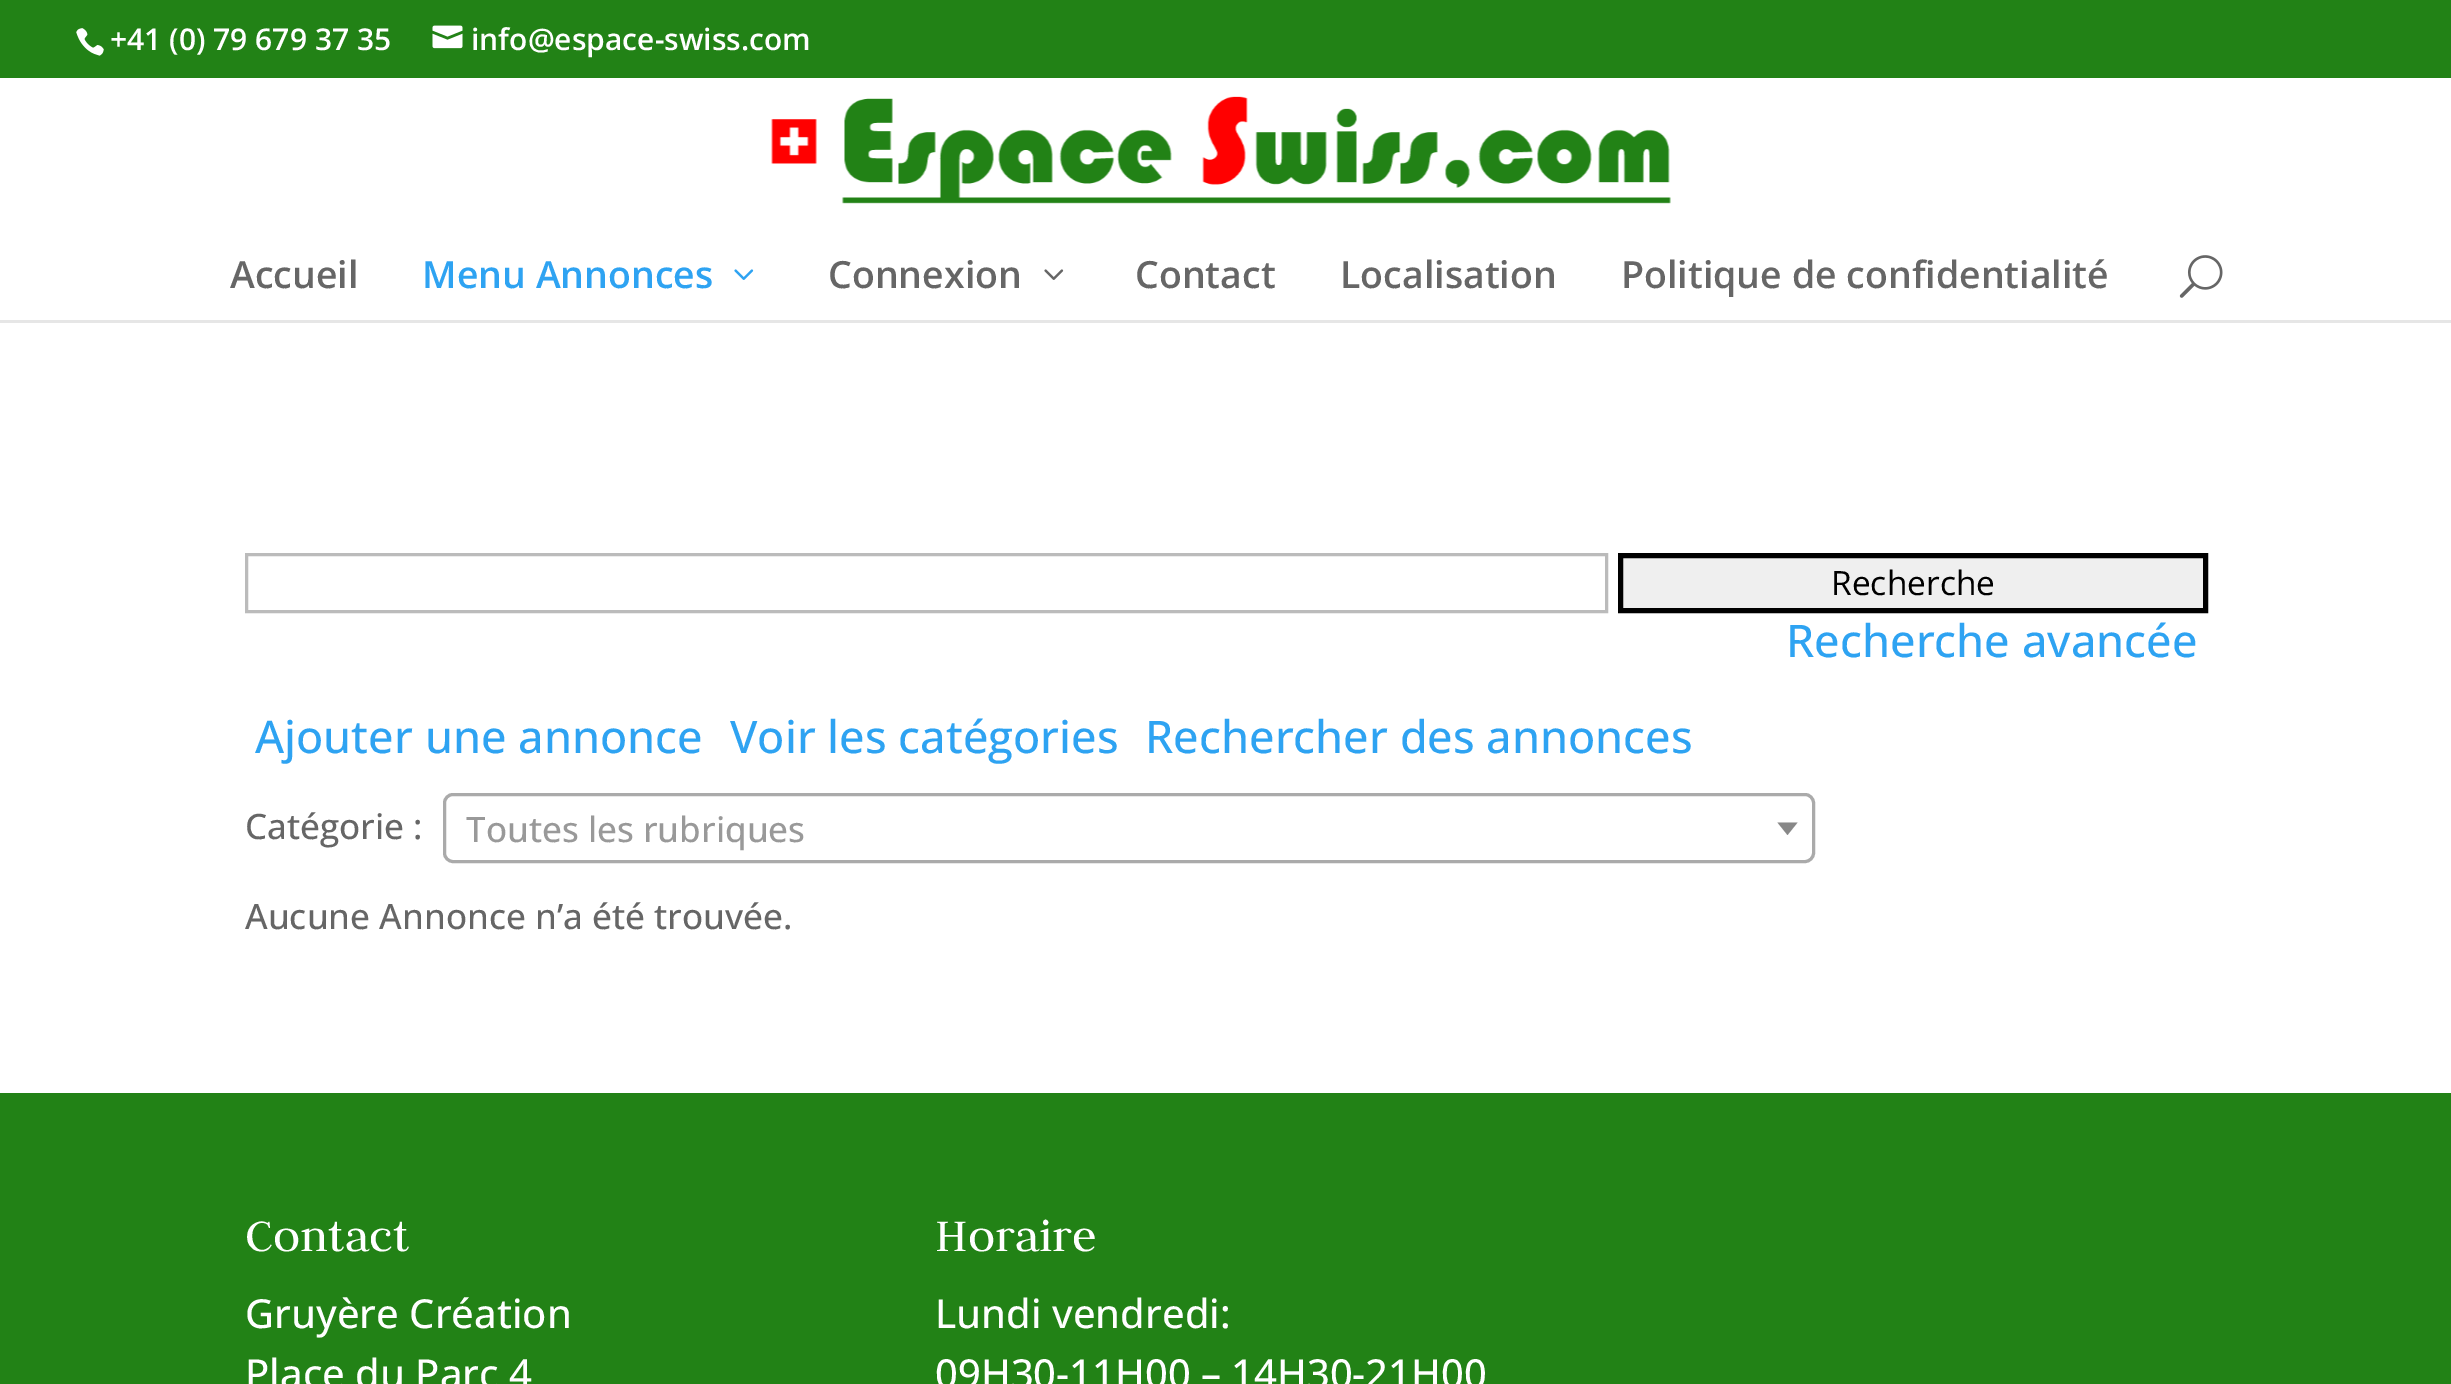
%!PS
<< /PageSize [2451 1384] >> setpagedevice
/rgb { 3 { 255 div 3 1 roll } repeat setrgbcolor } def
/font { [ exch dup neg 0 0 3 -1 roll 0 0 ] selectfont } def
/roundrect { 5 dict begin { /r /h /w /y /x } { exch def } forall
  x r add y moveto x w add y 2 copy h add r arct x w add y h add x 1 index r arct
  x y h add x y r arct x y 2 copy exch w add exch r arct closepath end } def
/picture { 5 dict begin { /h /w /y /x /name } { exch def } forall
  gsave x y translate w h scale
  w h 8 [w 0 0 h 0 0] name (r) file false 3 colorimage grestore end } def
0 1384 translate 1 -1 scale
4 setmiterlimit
255 255 255 rgb
0 0 2451 1384 rectfill
34 130 22 rgb
0 0 2451 78 rectfill
(img/1.rgb) 76 28 28 28 picture
(img/2.rgb) 432 25 31 24 picture
230 230 230 rgb
0 320 moveto 0 323 lineto 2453 323 lineto 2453 80 lineto 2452 80 lineto 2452 320 lineto closepath fill
(img/3.rgb) 771 96 900 108 picture
(img/4.rgb) 734 269 20 11 picture
(img/5.rgb) 1044 269 20 11 picture
(img/6.rgb) 2179 255 44 43 picture
187 187 187 rgb
3 setlinewidth
246.5 554.5 1360 57 rectstroke
239 239 239 rgb
1620.5 555.5 moveto 2205.5 555.5 lineto 2205.5 610.5 lineto 1620.5 610.5 lineto closepath gsave fill grestore
0 0 0 rgb
5 setlinewidth
stroke
170 170 170 rgb
3 setlinewidth
444.5 794.5 1369 67 8.5 roundrect stroke
136 136 136 rgb
1777.5 822.5 moveto 1797.5 822.5 lineto 1787.5 835 lineto closepath fill
34 130 22 rgb
0 1093 2451 291 rectfill
/OpenSans-SemiBold 30 font
255 255 255 rgb
110 50 moveto (+41 \(0\) 79 679 37 35) show
471 50 moveto (info@espace-swiss.com) show
/OpenSans-SemiBold 37.5 font
102 102 102 rgb
230 288 moveto (Accueil) show
46 163 242 rgb
422 288 moveto (Menu Annonces) show
102 102 102 rgb
[
  [(Connexion) 828 288]
  [(Contact) 1135 288]
  [(Localisation) 1340 288]
  [(Politique de confidentialité) 1621 288]
] { aload pop moveto show } forall
/OpenSans-Regular 33.5 font
0 0 0 rgb
1831 595 moveto (Recherche) show
/OpenSans-Medium 45 font
46 163 242 rgb
[
  [(Recherche avancée) 1786 657]
  [(Ajouter une annonce) 255 753]
  [(Voir les catégories) 730 753]
  [(Rechercher des annonces) 1145 753]
] { aload pop moveto show } forall
/OpenSans-Medium 35 font
102 102 102 rgb
245 839 moveto (Catégorie :) show
153 153 153 rgb
466 842 moveto (Toutes les rubriques) show
102 102 102 rgb
245 929 moveto (Aucune Annonce n’a été trouvée.) show
/Judson-Regular 50 font
255 255 255 rgb
245 1251 moveto (Contact) show
/OpenSans-Medium 40 font
245 1328 moveto (Gruyère Création) show
245 1388 moveto (Place du Parc 4) show
/Judson-Regular 50 font
935 1251 moveto (Horaire) show
/OpenSans-Medium 40 font
935 1328 moveto (Lundi vendredi:) show
935 1388 moveto (09H30-11H00 – 14H30-21H00) show
showpage
